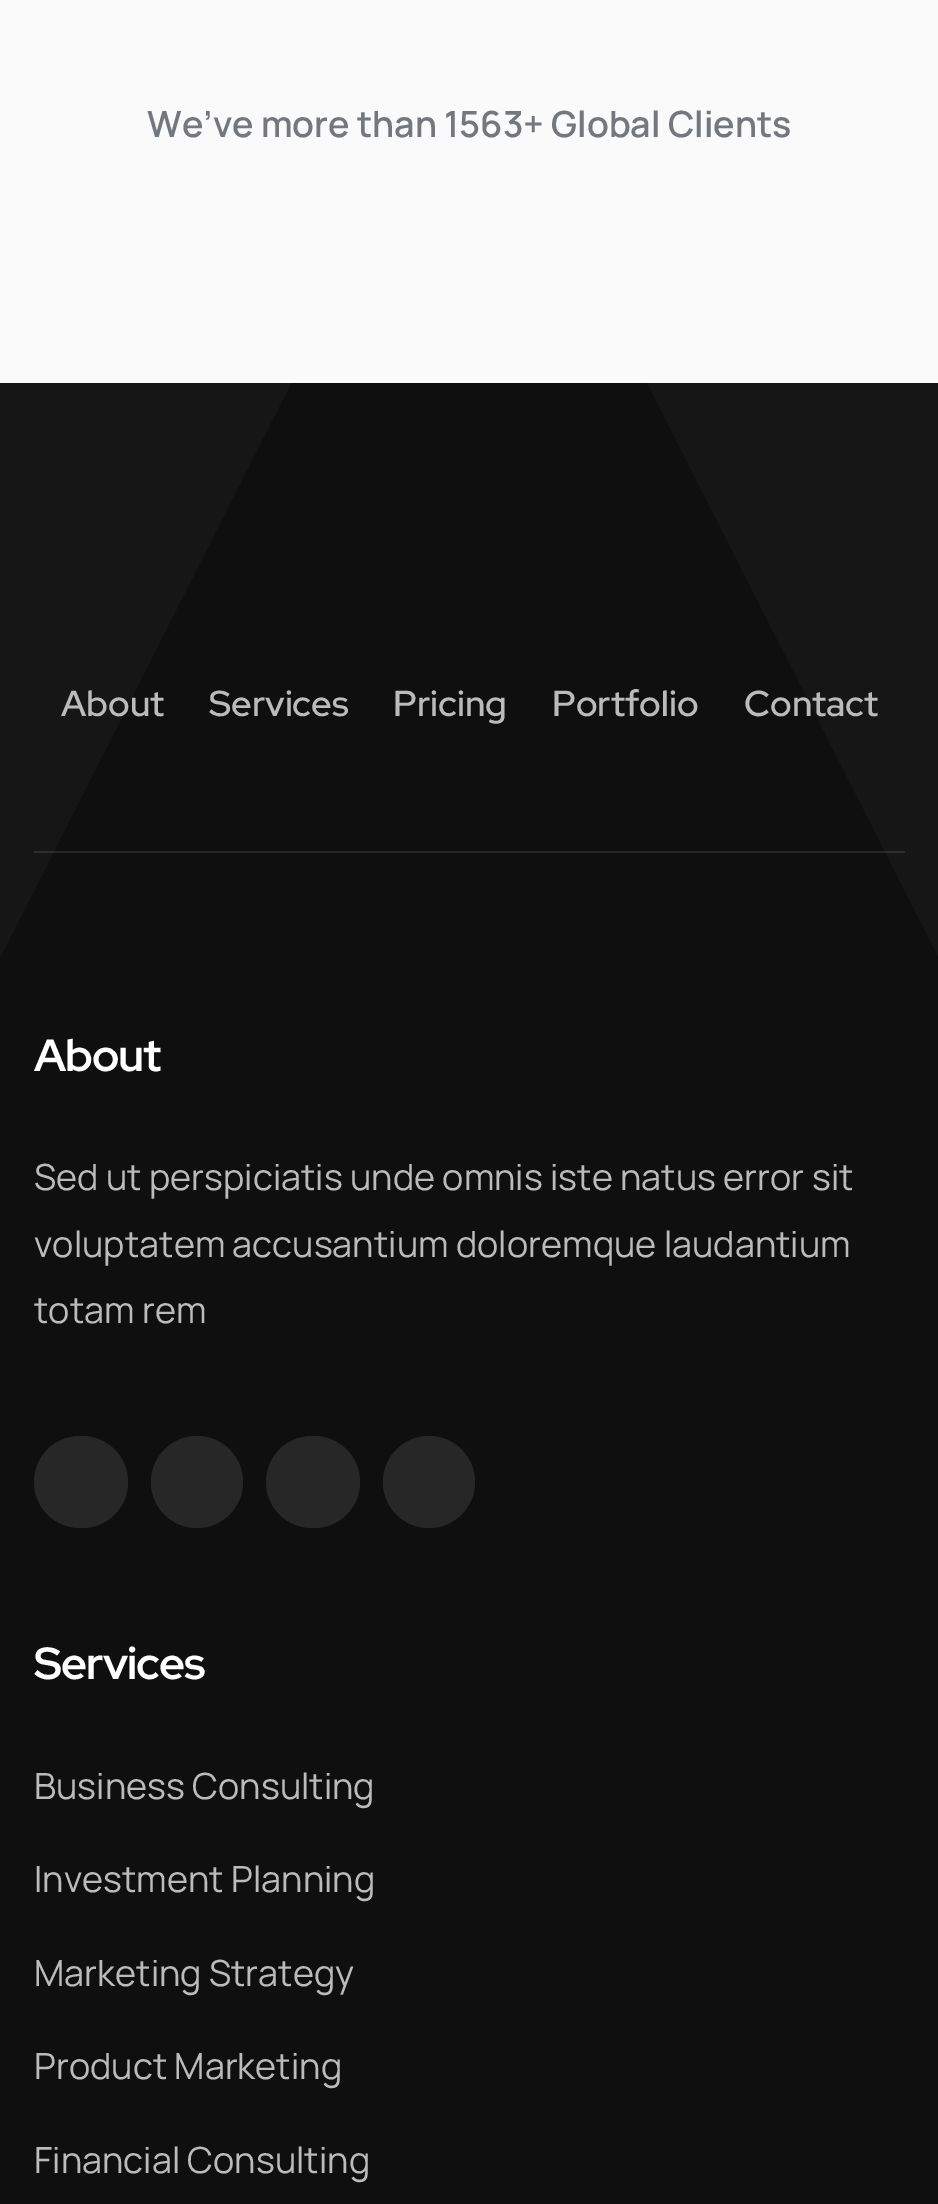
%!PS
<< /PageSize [938 2204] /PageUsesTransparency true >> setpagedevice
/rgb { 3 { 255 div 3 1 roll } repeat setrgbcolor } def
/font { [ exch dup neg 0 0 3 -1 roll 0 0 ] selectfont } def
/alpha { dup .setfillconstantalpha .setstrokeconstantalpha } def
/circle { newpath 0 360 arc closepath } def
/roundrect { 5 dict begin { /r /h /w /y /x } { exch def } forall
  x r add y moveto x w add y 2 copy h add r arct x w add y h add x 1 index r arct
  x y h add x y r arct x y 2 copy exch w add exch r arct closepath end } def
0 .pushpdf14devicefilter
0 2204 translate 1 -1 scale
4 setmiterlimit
15 15 15 rgb
0 0 938 2204 rectfill
22 22 22 rgb
0 158 moveto 0 956 lineto 1 956 lineto 405 158 lineto closepath fill
938 158 moveto 938 956 lineto 533 158 lineto closepath fill
250 250 250 rgb
0 0 938 383 rectfill
0.1 alpha
255 255 255 rgb
34 851 871 2 rectfill
1 alpha
39 39 39 rgb
34 1436 94 92 46 roundrect fill
197 1482 46 circle fill
266 1436 94 92 46 roundrect fill
429 1482 46 circle fill
/Manrope-SemiBold 36 font
116 120 124 rgb
147 137 moveto (We’ve more than 1563+ Global Clients) show
/RedHatDisplay-SemiBold 36 font
187 187 187 rgb
[
  [(About) 61 716]
  [(Services) 209 716]
  [(Pricing) 393 716]
  [(Portfolio) 552 716]
  [(Contact) 744 716]
] { aload pop moveto show } forall
/RedHatDisplay-Bold 45 font
255 255 255 rgb
34 1071 moveto -1 0 (About) ashow
/Manrope-Regular 36 font
187 187 187 rgb
[
  [(Sed ut perspiciatis unde omnis iste natus error sit) 34 1190]
  [(voluptatem accusantium doloremque laudantium) 34 1257]
  [(totam rem) 34 1323]
] { aload pop moveto show } forall
/RedHatDisplay-Bold 45 font
255 255 255 rgb
34 1679 moveto -1 0 (Services) ashow
/Manrope-Regular 36 font
187 187 187 rgb
[
  [(Business Consulting) 34 1799]
  [(Investment Planning) 34 1892]
  [(Marketing Strategy) 34 1986]
  [(Product Marketing) 34 2079]
  [(Financial Consulting) 34 2173]
] { aload pop moveto show } forall
.poppdf14devicefilter showpage
